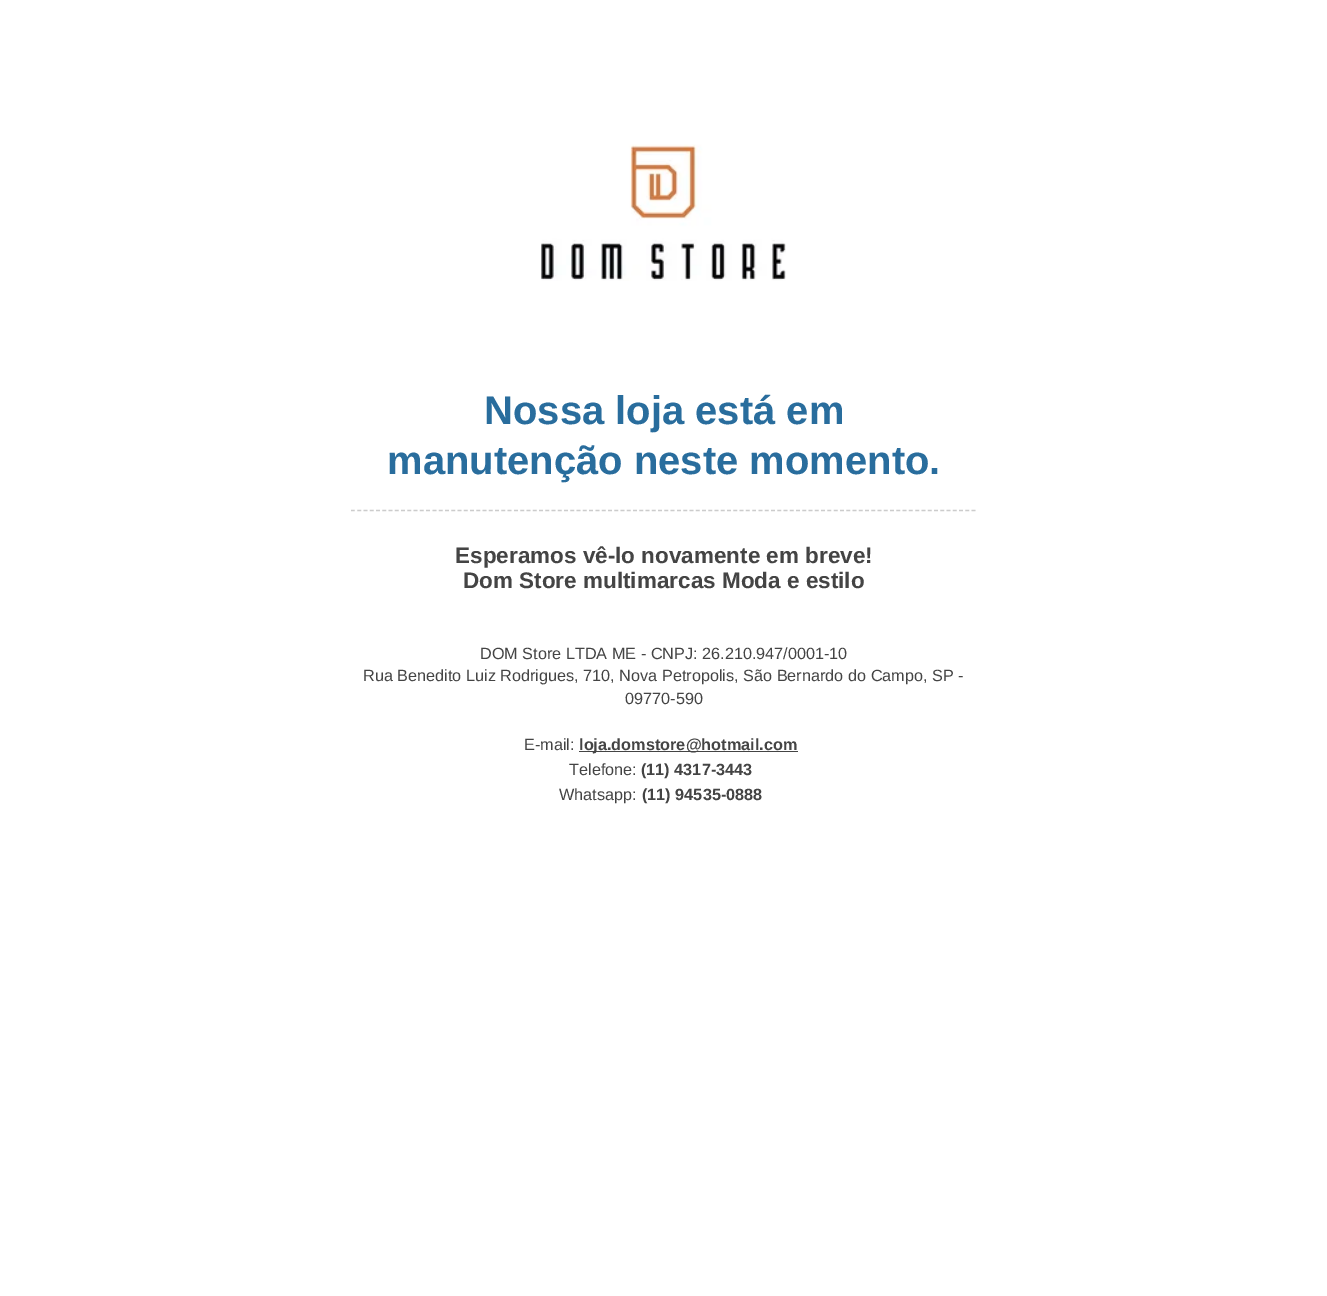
%!PS
<< /PageSize [1327 1296] >> setpagedevice
/rgb { 3 { 255 div 3 1 roll } repeat setrgbcolor } def
/font { [ exch dup neg 0 0 3 -1 roll 0 0 ] selectfont } def
/picture { 5 dict begin { /h /w /y /x /name } { exch def } forall
  gsave x y translate w h scale
  w h 8 [w 0 0 h 0 0] name (r) file false 3 colorimage grestore end } def
0 1296 translate 1 -1 scale
4 setmiterlimit
255 255 255 rgb
0 0 1327 1296 rectfill
(img/1.rgb) 541 144 245 137 picture
204 204 204 rgb
1.2 setlinewidth
[3.75 2.52] 0 setdash
351 510.5 moveto 976 510.5 lineto stroke
68 68 68 rgb
579 751 219 1 rectfill
/LiberationSans-Bold 40 font
41 109 157 rgb
484 424 moveto (Nossa loja está em) show
387 474 moveto (manutenção neste momento.) show
/LiberationSans-Bold 22.5 font
68 68 68 rgb
455 563 moveto (Esperamos vê-lo novamente em breve!) show
463 588 moveto (Dom Store multimarcas Moda e estilo) show
/LiberationSans-Regular 16.25 font
[
  [(DOM Store LTDA ME - CNPJ: 26.210.947/0001-10) 480 659]
  [(Rua Benedito Luiz Rodrigues, 710, Nova Petropolis, São Bernardo do Campo, SP -) 363 681]
  [(09770-590) 625 704]
  [(E-mail:) 524 750]
] { aload pop moveto show } forall
/LiberationSans-Bold 16.25 font
579 750 moveto (loja.domstore@hotmail.com) show
/LiberationSans-Regular 16.25 font
569 775 moveto (Telefone:) show
/LiberationSans-Bold 16.25 font
641 775 moveto (\(11\) 4317-3443) show
/LiberationSans-Regular 16.25 font
559 800 moveto (Whatsapp:) show
/LiberationSans-Bold 16.25 font
642 800 moveto (\(11\) 94535-0888) show
showpage
